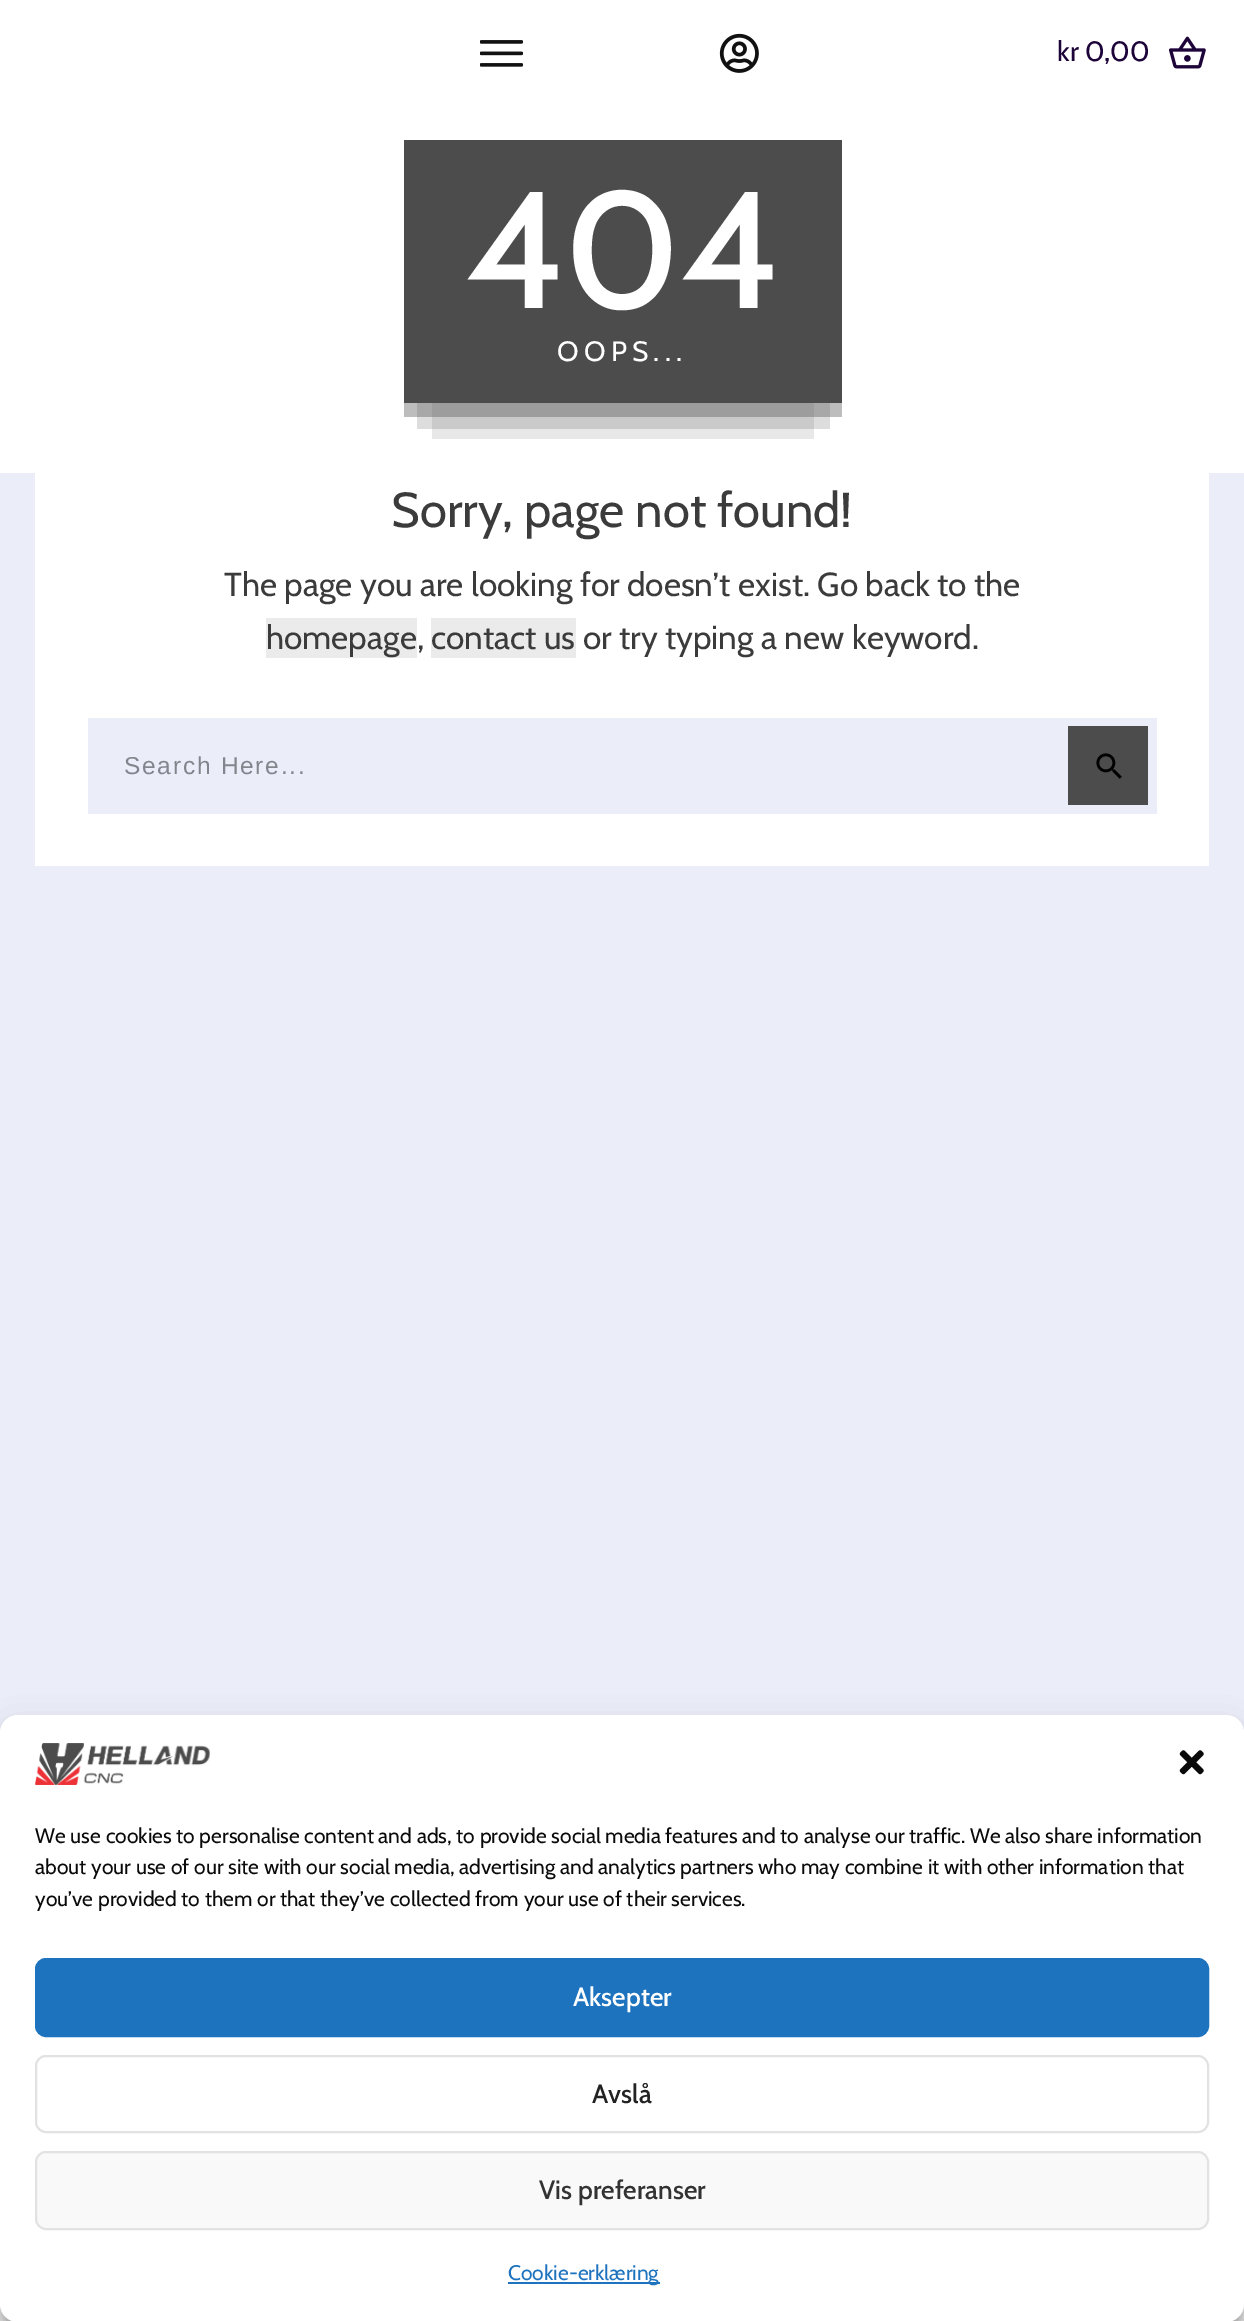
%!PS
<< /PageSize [1244 2321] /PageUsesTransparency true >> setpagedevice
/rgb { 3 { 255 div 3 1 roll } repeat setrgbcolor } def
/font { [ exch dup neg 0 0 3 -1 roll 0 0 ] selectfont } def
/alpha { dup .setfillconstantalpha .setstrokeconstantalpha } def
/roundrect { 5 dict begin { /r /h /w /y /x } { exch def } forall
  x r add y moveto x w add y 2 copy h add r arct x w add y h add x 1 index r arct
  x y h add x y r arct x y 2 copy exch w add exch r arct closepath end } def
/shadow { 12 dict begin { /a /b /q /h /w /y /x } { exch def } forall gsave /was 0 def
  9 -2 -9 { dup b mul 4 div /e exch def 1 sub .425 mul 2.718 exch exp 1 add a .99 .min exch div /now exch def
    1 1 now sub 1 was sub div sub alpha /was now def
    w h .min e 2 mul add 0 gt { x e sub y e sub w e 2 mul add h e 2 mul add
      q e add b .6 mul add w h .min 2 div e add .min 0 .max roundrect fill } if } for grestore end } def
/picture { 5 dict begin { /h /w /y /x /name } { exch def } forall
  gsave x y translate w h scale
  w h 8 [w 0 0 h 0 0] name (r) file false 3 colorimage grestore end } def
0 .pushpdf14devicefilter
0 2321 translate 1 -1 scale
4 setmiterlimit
235 237 249 rgb
0 0 1244 2321 rectfill
255 255 255 rgb
0 0 1244 473 rectfill
(img/1.rgb) 480 40 43 27 picture
(img/2.rgb) 719 33 40 40 picture
(img/3.rgb) 1169 36 37 33 picture
[
  [417 403 413 26 221 221 221]
  [432 429 382 10 232 232 232]
  [432 403 382 26 202 202 202]
] { aload pop rgb rectfill } forall
0.4 alpha
89 89 89 rgb
404 154 moveto 404 417 lineto 842 417 lineto 842 154 lineto 842 402 lineto 404 402 lineto closepath fill
1 alpha
[
  [404 140 438 263 76 76 77]
  [35 473 1174 393 255 255 255]
  [266 618 151 40 235 235 235]
  [431 618 145 40 235 235 235]
  [88 718 1069 96 235 237 249]
  [1068 726 80 79 76 76 77]
] { aload pop rgb rectfill } forall
(img/4.rgb) 1096 753 26 26 picture
255 255 255 rgb
0 2304 1244 17 rectfill
0 0 0 rgb
0 1726 1244 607 18 5 0.23 shadow
0 1733 1244 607 18 17.5 0.19 shadow
255 255 255 rgb
0 1715 1244 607 18 roundrect fill
(img/5.rgb) 35 1743 175 42 picture
(img/6.rgb) 1179 1750 25 25 picture
30 115 190 rgb
36 1959 1172 77 10 roundrect gsave fill grestore
2 setlinewidth
stroke
226 226 226 rgb
36 2056 1172 76 10 roundrect stroke
249 249 249 rgb
36 2152 1172 77 10 roundrect gsave fill grestore
226 226 226 rgb
stroke
30 115 190 rgb
508 2282 152 2 rectfill
/Cabin-Regular 28 font
29 4 57 rgb
1057 61 moveto (kr 0,00) show
/Cabin-Medium 166 font
255 255 255 rgb
465 308 moveto (404) show
/Cabin-Regular 28 font
557 361 moveto 5.25 0 (OOPS...) ashow
/Cabin-Regular 49 font
59 59 59 rgb
391 527 moveto (Sorry, page not found!) show
/Cabin-Regular 33.25 font
[
  [(The page you are looking for doesn’t exist. Go back to the) 224 596]
  [(homepage,) 266 649]
  [(contact us or try typing a new keyword.) 431 649]
] { aload pop moveto show } forall
/LiberationSans-Regular 24.5 font
132 133 140 rgb
124 774 moveto 1.75 0 (Search Here...) ashow
/Cabin-Regular 21 font
10 10 10 rgb
[
  [(We use cookies to personalise content and ads, to provide social media features and to analyse our traffic. We also share information) 35 1843]
  [(about your use of our site with our social media, advertising and analytics partners who may combine it with other information that) 35 1874]
  [(you’ve provided to them or that they’ve collected from your use of their services.) 35 1906]
] { aload pop moveto show } forall
/Cabin-Medium 26.25 font
255 255 255 rgb
573 2006 moveto (Aksepter) show
34 34 34 rgb
592 2103 moveto (Avslå) show
51 51 51 rgb
539 2199 moveto (Vis preferanser) show
/Cabin-Regular 21 font
30 115 190 rgb
508 2280 moveto (Cookie-erklæring) show
.poppdf14devicefilter showpage
